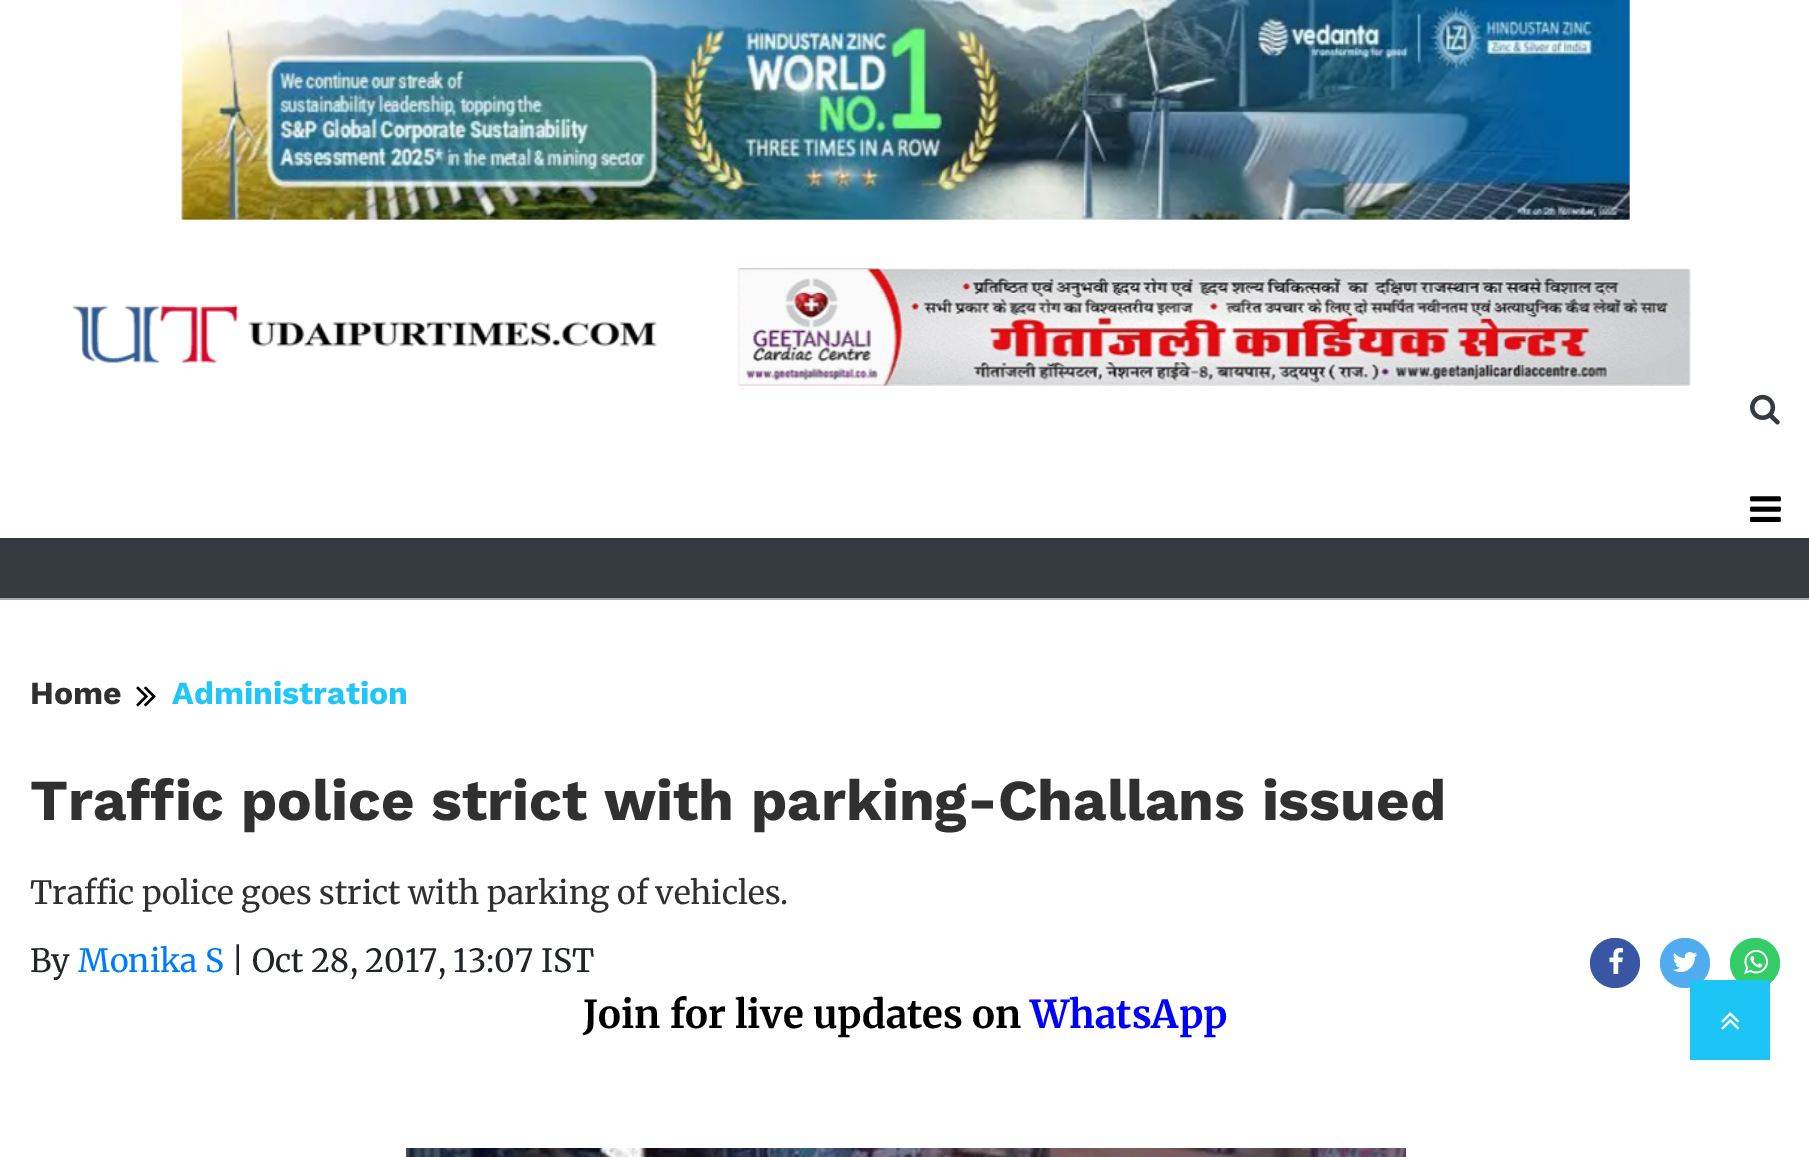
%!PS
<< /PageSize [1809 1157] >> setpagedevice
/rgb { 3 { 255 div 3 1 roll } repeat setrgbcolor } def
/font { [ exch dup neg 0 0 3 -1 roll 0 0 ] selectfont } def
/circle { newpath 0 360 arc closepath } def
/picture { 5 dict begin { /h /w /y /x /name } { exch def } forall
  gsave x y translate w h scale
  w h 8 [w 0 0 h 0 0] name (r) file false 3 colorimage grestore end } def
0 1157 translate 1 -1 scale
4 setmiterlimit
255 255 255 rgb
0 0 1809 1157 rectfill
169 169 169 rgb
0 598 1809 2 rectfill
(img/1.rgb) 181 0 1449 220 picture
(img/2.rgb) 72 305 585 58 picture
(img/3.rgb) 737 268 954 118 picture
(img/4.rgb) 1750 394 30 31 picture
52 58 64 rgb
0 538 1809 60 rectfill
(img/5.rgb) 1750 496 31 26 picture
(img/6.rgb) 136 686 20 21 picture
57 86 165 rgb
1615 963 25 circle fill
(img/7.rgb) 1609 948 14 26 picture
81 172 239 rgb
1685 963 25 circle fill
(img/8.rgb) 1672 952 26 20 picture
51 204 102 rgb
1755 963 25 circle fill
(img/9.rgb) 1744 949 24 25 picture
(img/10.rgb) 406 1148 1000 9 picture
29 196 246 rgb
1690 980 80 80 rectfill
(img/11.rgb) 1721 1012 19 18 picture
/WorkSans-Bold 32 font
48 48 48 rgb
30 704 moveto (Home) show
32 198 247 rgb
172 704 moveto (Administration) show
/WorkSans-Bold 58 font
48 48 48 rgb
30 820 moveto (Traffic police strict with parking-Challans issued) show
/Merriweather-Regular 32 font
30 904 moveto (Traffic police goes strict with parking of vehicles.) show
33 37 41 rgb
30 972 moveto (By) show
0 123 255 rgb
78 972 moveto (Monika S) show
33 37 41 rgb
231 972 moveto (| Oct 28, 2017, 13:07 IST) show
/Merriweather-Bold 38.4 font
0 0 0 rgb
583 1028 moveto (Join for live updates on) show
0 0 255 rgb
1030 1028 moveto (WhatsApp) show
showpage
